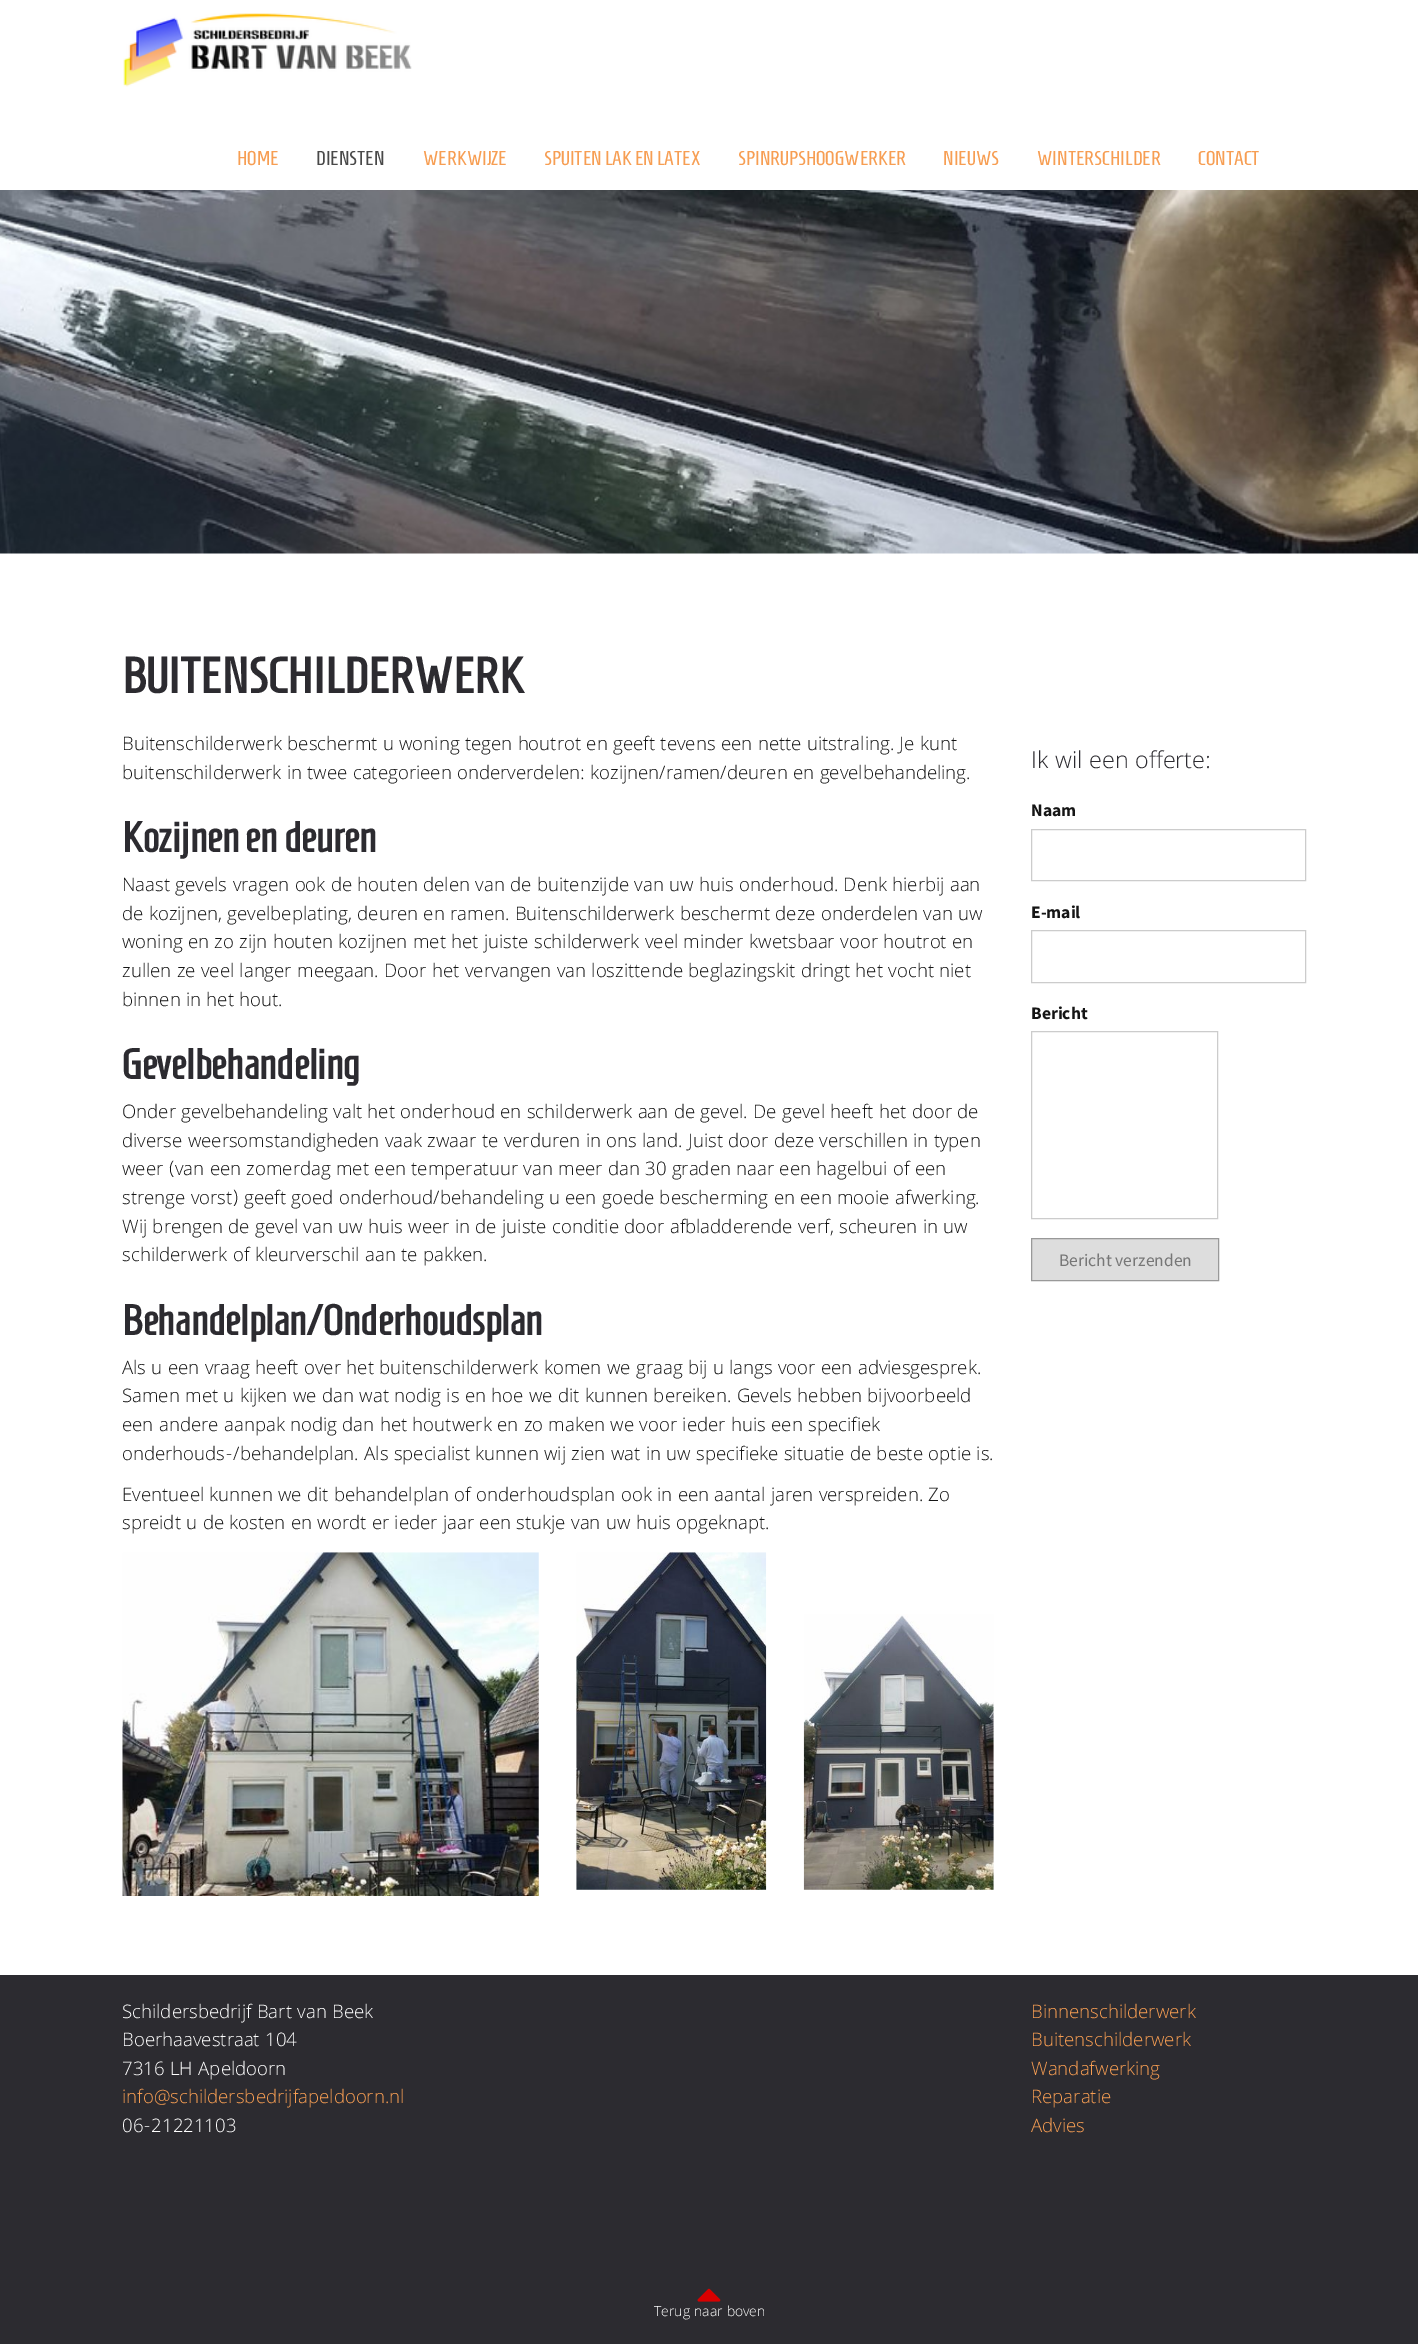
%!PS
<< /PageSize [1418 2344] >> setpagedevice
/rgb { 3 { 255 div 3 1 roll } repeat setrgbcolor } def
/font { [ exch dup neg 0 0 3 -1 roll 0 0 ] selectfont } def
/picture { 5 dict begin { /h /w /y /x /name } { exch def } forall
  gsave x y translate w h scale
  w h 8 [w 0 0 h 0 0] name (r) file false 3 colorimage grestore end } def
0 2344 translate 1 -1 scale
4 setmiterlimit
255 255 255 rgb
0 0 1418 2344 rectfill
(img/1.rgb) 123 13 289 74 picture
(img/2.rgb) 0 190 1418 364 picture
(img/3.rgb) 122 1552 417 344 picture
(img/4.rgb) 576 1552 191 338 picture
(img/5.rgb) 803 1614 191 276 picture
204 204 204 rgb
1031.5 829.5 274 51 rectstroke
1031.5 930.5 274 52 rectstroke
1031.5 1031.5 186 187 rectstroke
221 221 221 rgb
1031.5 1238.5 moveto 1218.5 1238.5 lineto 1218.5 1280.5 lineto 1031.5 1280.5 lineto closepath gsave fill grestore
153 153 153 rgb
stroke
44 43 48 rgb
0 1975 1418 369 rectfill
(img/6.rgb) 697 2288 24 14 picture
/Homenaje-Regular 20 font
247 158 83 rgb
237 165 moveto (HOME) show
73 73 73 rgb
316 165 moveto (DIENSTEN) show
247 158 83 rgb
[
  [(WERKWIJZE) 423 165]
  [(SPUITEN LAK EN LATEX) 544 165]
  [(SPINRUPSHOOGWERKER) 738 165]
  [(NIEUWS) 943 165]
  [(WINTERSCHILDER) 1037 165]
  [(CONTACT) 1198 165]
] { aload pop moveto show } forall
/Homenaje-Bold 50 font
44 43 48 rgb
122 693 moveto (BUITENSCHILDERWERK) show
/Khula-Light 20 font
21 21 21 rgb
122 750 moveto (Buitenschilderwerk beschermt u woning tegen houtrot en geeft tevens een nette uitstraling. Je kunt) show
122 779 moveto (buitenschilderwerk in twee categorieen onderverdelen: kozijnen/ramen/deuren en gevelbehandeling.) show
/Homenaje-Bold 42.5 font
44 43 48 rgb
122 852 moveto (Kozijnen en deuren) show
/Khula-Light 20 font
21 21 21 rgb
[
  [(Naast gevels vragen ook de houten delen van de buitenzijde van uw huis onderhoud. Denk hierbij aan) 122 891]
  [(de kozijnen, gevelbeplating, deuren en ramen. Buitenschilderwerk beschermt deze onderdelen van uw) 122 920]
  [(woning en zo zijn houten kozijnen met het juiste schilderwerk veel minder kwetsbaar voor houtrot en) 122 948]
  [(zullen ze veel langer meegaan. Door het vervangen van loszittende beglazingskit dringt het vocht niet) 122 977]
  [(binnen in het hout.) 122 1006]
] { aload pop moveto show } forall
/Homenaje-Bold 42.5 font
44 43 48 rgb
122 1079 moveto (Gevelbehandeling) show
/Khula-Light 20 font
21 21 21 rgb
[
  [(Onder gevelbehandeling valt het onderhoud en schilderwerk aan de gevel. De gevel heeft het door de) 122 1118]
  [(diverse weersomstandigheden vaak zwaar te verduren in ons land. Juist door deze verschillen in typen) 122 1147]
  [(weer \(van een zomerdag met een temperatuur van meer dan 30 graden naar een hagelbui of een) 122 1175]
  [(strenge vorst\) geeft goed onderhoud/behandeling u een goede bescherming en een mooie afwerking.) 122 1204]
  [(Wij brengen de gevel van uw huis weer in de juiste conditie door afbladderende verf, scheuren in uw) 122 1233]
  [(schilderwerk of kleurverschil aan te pakken.) 122 1261]
] { aload pop moveto show } forall
/Homenaje-Bold 42.5 font
44 43 48 rgb
122 1335 moveto (Behandelplan/Onderhoudsplan) show
/Khula-Light 20 font
21 21 21 rgb
[
  [(Als u een vraag heeft over het buitenschilderwerk komen we graag bij u langs voor een adviesgesprek.) 122 1374]
  [(Samen met u kijken we dan wat nodig is en hoe we dit kunnen bereiken. Gevels hebben bijvoorbeeld) 122 1402]
  [(een andere aanpak nodig dan het houtwerk en zo maken we voor ieder huis een specifiek) 122 1431]
  [(onderhouds-/behandelplan. Als specialist kunnen wij zien wat in uw specifieke situatie de beste optie is.) 122 1460]
  [(Eventueel kunnen we dit behandelplan of onderhoudsplan ook in een aantal jaren verspreiden. Zo) 122 1501]
  [(spreidt u de kosten en wordt er ieder jaar een stukje van uw huis opgeknapt.) 122 1529]
] { aload pop moveto show } forall
/Khula-Light 25 font
44 43 48 rgb
1031 768 moveto (Ik wil een offerte:) show
/SourceSansPro-Bold 17.5 font
21 21 21 rgb
[
  [(Naam) 1031 816]
  [(E-mail) 1031 918]
  [(Bericht) 1031 1019]
] { aload pop moveto show } forall
/SourceSansPro-Regular 17.5 font
119 119 119 rgb
1059 1266 moveto (Bericht verzenden) show
/Khula-Light 20 font
255 255 255 rgb
[
  [(Schildersbedrijf Bart van Beek) 122 2018]
  [(Boerhaavestraat 104) 122 2046]
  [(7316 LH Apeldoorn) 122 2075]
] { aload pop moveto show } forall
247 158 83 rgb
122 2103 moveto (info@schildersbedrijfapeldoorn.nl) show
255 255 255 rgb
122 2132 moveto (06-21221103) show
247 158 83 rgb
[
  [(Binnenschilderwerk) 1031 2018]
  [(Buitenschilderwerk) 1031 2046]
  [(Wandafwerking) 1031 2075]
  [(Reparatie) 1031 2103]
  [(Advies) 1031 2132]
] { aload pop moveto show } forall
/Khula-Light 15 font
255 255 255 rgb
654 2316 moveto (Terug naar boven) show
showpage
